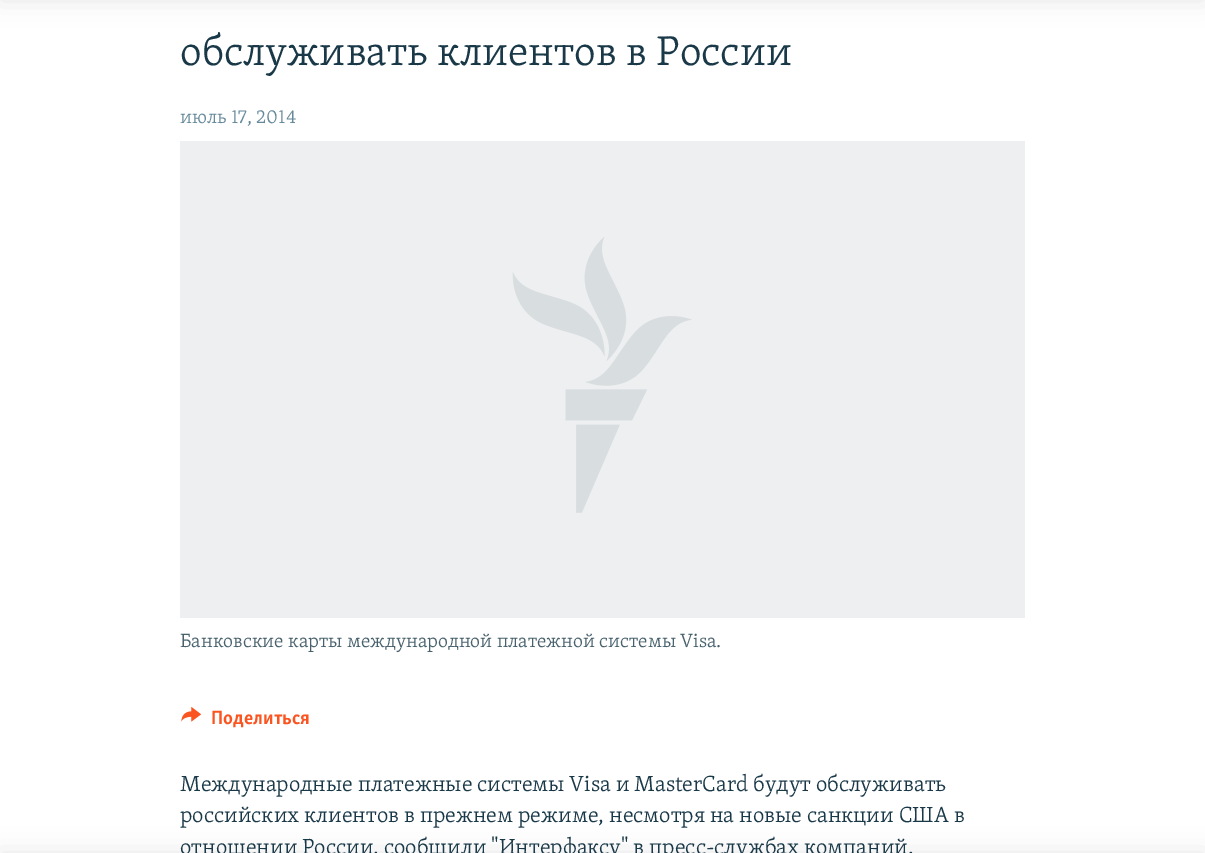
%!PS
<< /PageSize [1205 853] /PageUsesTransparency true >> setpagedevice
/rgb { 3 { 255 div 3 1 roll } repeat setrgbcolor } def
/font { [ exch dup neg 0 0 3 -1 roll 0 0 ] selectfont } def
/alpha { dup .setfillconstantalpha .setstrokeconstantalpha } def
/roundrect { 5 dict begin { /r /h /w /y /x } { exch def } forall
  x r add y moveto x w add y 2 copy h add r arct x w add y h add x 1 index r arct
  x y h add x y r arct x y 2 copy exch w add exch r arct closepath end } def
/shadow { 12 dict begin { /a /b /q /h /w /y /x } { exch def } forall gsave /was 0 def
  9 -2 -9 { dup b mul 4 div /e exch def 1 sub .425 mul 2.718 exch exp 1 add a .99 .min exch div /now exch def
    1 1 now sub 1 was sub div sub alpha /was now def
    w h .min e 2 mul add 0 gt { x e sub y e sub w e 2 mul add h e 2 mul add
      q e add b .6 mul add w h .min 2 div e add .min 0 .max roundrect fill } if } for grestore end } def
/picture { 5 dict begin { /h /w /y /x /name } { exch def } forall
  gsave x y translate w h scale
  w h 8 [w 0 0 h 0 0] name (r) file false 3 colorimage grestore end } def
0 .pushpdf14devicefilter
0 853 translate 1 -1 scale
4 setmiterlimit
255 255 255 rgb
0 0 1205 853 rectfill
0 0 0 rgb
0 -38 1205 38 0 12.5 0.1 shadow
0 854 1205 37 0 12.5 0.1 shadow
237 239 240 rgb
180 141 845 477 rectfill
(img/1.rgb) 512 237 180 276 picture
(img/2.rgb) 181 706 21 16 picture
/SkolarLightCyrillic-Light 42.75 font
26 57 72 rgb
180 65 moveto (обслуживать клиентов в России) show
/SkolarLightCyrillic-Light 19.7 font
103 138 155 rgb
180 123 moveto (июль 17, 2014) show
72 97 109 rgb
180 647 moveto (Банковские карты международной платежной системы Visa.) show
/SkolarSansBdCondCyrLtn-Bold 19.7 font
250 84 32 rgb
211 724 moveto (Поделиться) show
/SkolarLightCyrillic-Light 22.5 font
26 57 72 rgb
[
  [(Международные платежные системы Visa и MasterCard будут обслуживать) 180 791]
  [(российских клиентов в прежнем режиме, несмотря на новые санкции США в) 180 822]
  [(отношении России, сообщили "Интерфаксу" в пресс-службах компаний.) 180 854]
] { aload pop moveto show } forall
.poppdf14devicefilter showpage
